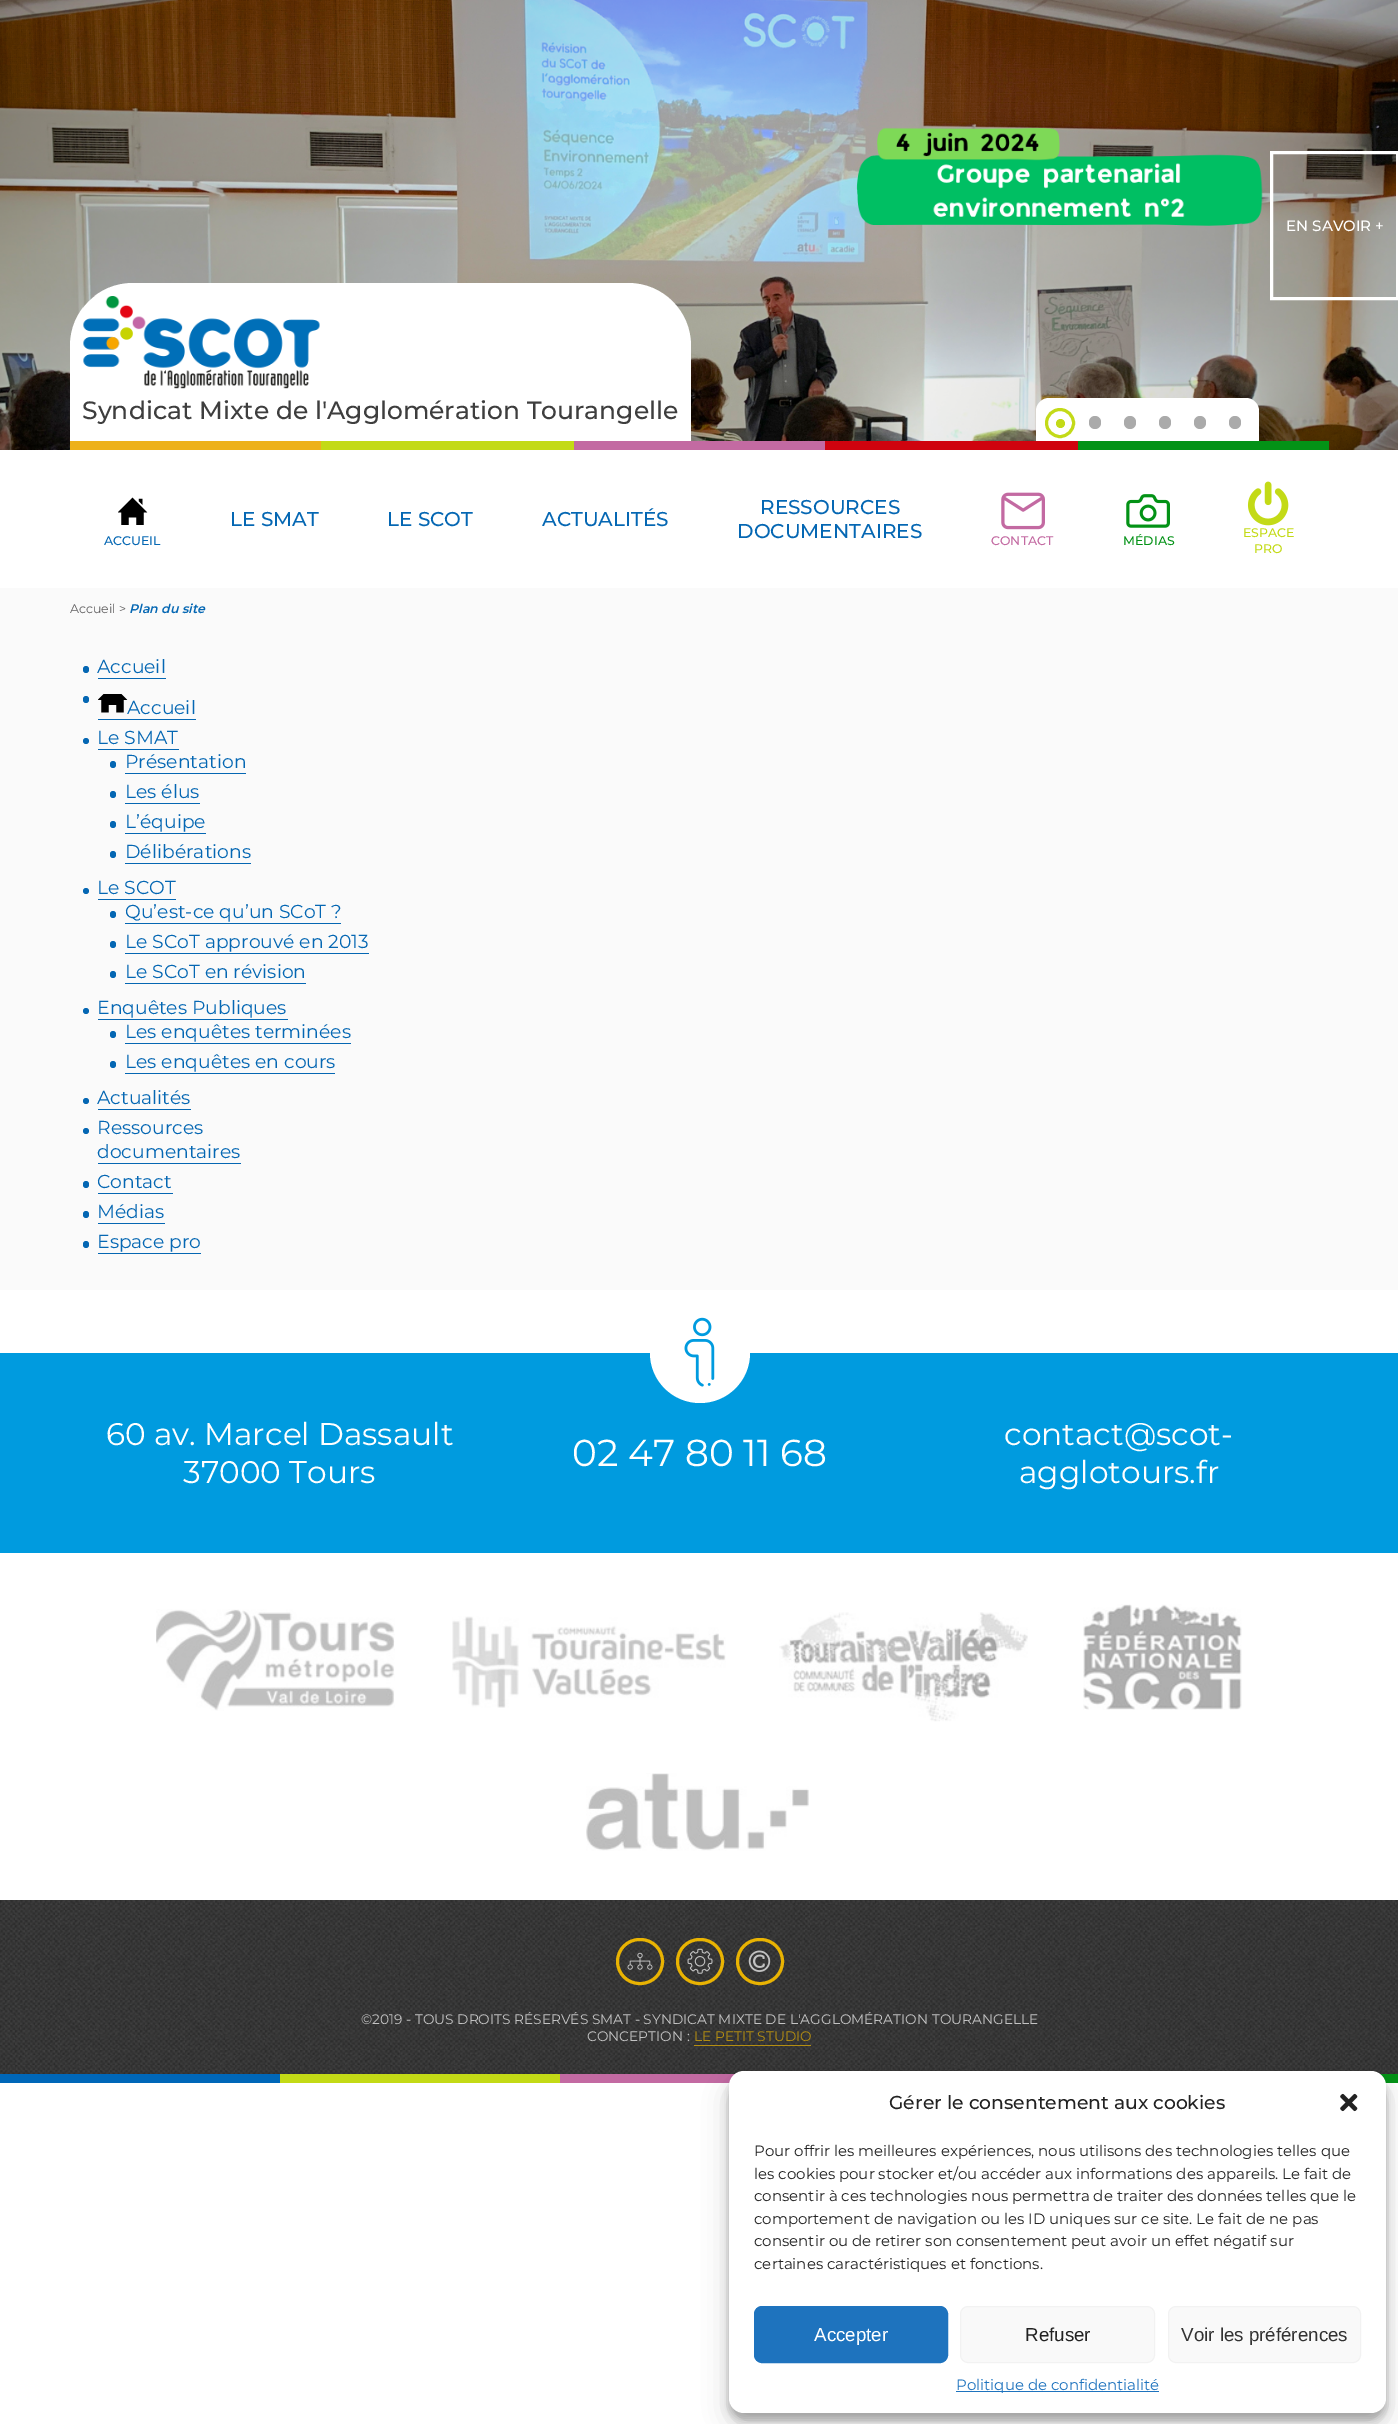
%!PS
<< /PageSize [1398 2424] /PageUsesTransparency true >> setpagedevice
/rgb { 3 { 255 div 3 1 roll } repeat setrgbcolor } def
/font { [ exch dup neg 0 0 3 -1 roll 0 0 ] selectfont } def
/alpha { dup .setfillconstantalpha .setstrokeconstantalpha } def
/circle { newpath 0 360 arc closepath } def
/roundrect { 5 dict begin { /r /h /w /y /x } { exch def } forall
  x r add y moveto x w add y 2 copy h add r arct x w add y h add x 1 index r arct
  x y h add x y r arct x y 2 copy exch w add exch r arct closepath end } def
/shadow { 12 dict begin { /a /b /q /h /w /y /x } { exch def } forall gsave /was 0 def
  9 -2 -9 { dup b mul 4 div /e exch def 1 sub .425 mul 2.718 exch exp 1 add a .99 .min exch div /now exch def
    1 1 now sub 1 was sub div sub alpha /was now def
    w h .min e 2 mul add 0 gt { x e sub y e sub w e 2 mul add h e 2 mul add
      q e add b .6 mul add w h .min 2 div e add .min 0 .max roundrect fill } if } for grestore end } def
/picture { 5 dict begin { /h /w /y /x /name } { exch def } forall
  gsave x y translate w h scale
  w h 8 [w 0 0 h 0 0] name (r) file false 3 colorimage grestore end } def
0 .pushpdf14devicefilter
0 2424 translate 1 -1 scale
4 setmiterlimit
255 255 255 rgb
0 0 1398 2424 rectfill
(img/1.rgb) 0 0 1398 450 picture
3 setlinewidth
1271.5 152.5 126 146 rectstroke
1049 398 moveto 1246 398 lineto 1253 398 1259 404 1259 411 curveto 1259 441 lineto 1036 441 lineto 1036 411 lineto 1036 404 1042 398 1049 398 curveto closepath fill
195 218 24 rgb
1060 423 13.5 circle stroke
1060.5 423.5 4.5 circle fill
170 170 170 rgb
1089 416 12 13 6 roundrect fill
1124 416 12 13 6 roundrect fill
1159 416 12 13 6 roundrect fill
1194 416 12 13 6 roundrect fill
1229 416 12 13 6 roundrect fill
255 255 255 rgb
133 283 moveto 628 283 lineto 663 283 691 311 691 346 curveto 691 450 lineto 70 450 lineto 70 346 lineto 70 311 98 283 133 283 curveto closepath fill
(img/2.rgb) 83 296 237 93 picture
[
  [70 441 251 9 237 177 27]
  [321 441 253 9 195 218 22]
  [574 441 251 9 195 106 162]
  [825 441 253 9 207 3 14]
  [1078 441 251 9 3 146 22]
] { aload pop rgb rectfill } forall
(img/3.rgb) 118 497 30 28 picture
(img/4.rgb) 1001 492 44 38 picture
(img/5.rgb) 1126 494 44 34 picture
(img/6.rgb) 1247 481 42 45 picture
250 250 250 rgb
0 588 1398 702 rectfill
5 103 179 rgb
83 666 6 7 3 roundrect fill
98 678 68 1 rectfill
83 696 6 7 3 roundrect fill
(img/7.rgb) 98 694 30 19 picture
98 719 98 1 rectfill
86 741 3 circle fill
98 749 81 1 rectfill
110 761 6 7 3 roundrect fill
125 773 121 1 rectfill
110 791 6 7 3 roundrect fill
125 803 75 1 rectfill
110 821 6 7 3 roundrect fill
125 833 81 1 rectfill
110 851 6 7 3 roundrect fill
125 863 126 1 rectfill
86 891 3 circle fill
98 899 78 1 rectfill
110 911 6 7 3 roundrect fill
125 923 216 1 rectfill
110 941 6 7 3 roundrect fill
125 953 244 1 rectfill
110 971 6 7 3 roundrect fill
125 983 181 1 rectfill
86 1011 3 circle fill
98 1019 190 1 rectfill
110 1031 6 7 3 roundrect fill
125 1043 226 1 rectfill
110 1061 6 7 3 roundrect fill
125 1073 210 1 rectfill
86 1101 3 circle fill
98 1109 93 1 rectfill
86 1131 3 circle fill
98 1163 143 1 rectfill
83 1181 6 7 3 roundrect fill
98 1193 75 1 rectfill
83 1211 6 7 3 roundrect fill
98 1223 67 1 rectfill
83 1241 6 7 3 roundrect fill
98 1253 103 1 rectfill
0 155 223 rgb
0 1353 1398 200 rectfill
255 255 255 rgb
700 1353 50 circle fill
(img/8.rgb) 684 1317 31 70 picture
(img/9.rgb) 156 1609 239 102 picture
(img/10.rgb) 452 1616 274 92 picture
(img/11.rgb) 779 1612 249 110 picture
(img/12.rgb) 1083 1604 159 106 picture
(img/13.rgb) 586 1773 223 78 picture
(img/14.rgb) 0 1900 1398 174 picture
233 179 2 rgb
617.5 1939.5 45 44 22 roundrect stroke
(img/15.rgb) 627 1952 26 18 picture
677.5 1939.5 45 44 22 roundrect stroke
(img/16.rgb) 687 1948 26 26 picture
737.5 1939.5 45 44 22 roundrect stroke
(img/17.rgb) 748 1950 23 22 picture
0.7 alpha
[
  [694 2045 117 1 233 179 2]
] { aload pop rgb rectfill } forall
1 alpha
[
  [0 2074 280 9 0 103 184]
  [280 2074 280 9 195 218 22]
  [560 2074 175 9 195 106 162]
  [1380 2074 18 9 3 146 22]
] { aload pop rgb rectfill } forall
0 0 0 rgb
729 2079 657 341 15 4 0.23 shadow
729 2084 657 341 15 12.5 0.19 shadow
255 255 255 rgb
729 2071 657 342 15 roundrect fill
(img/18.rgb) 1340 2093 18 19 picture
30 115 190 rgb
754.5 2306.5 193 56 7.5 roundrect gsave fill grestore
1 setlinewidth
stroke
249 249 249 rgb
960.5 2306.5 194 56 7.5 roundrect gsave fill grestore
242 242 242 rgb
stroke
249 249 249 rgb
1168.5 2306.5 192 56 7.5 roundrect gsave fill grestore
242 242 242 rgb
stroke
30 115 190 rgb
956 2391 203 1 rectfill
/Montserrat-Medium 15 font
255 255 255 rgb
1286 231 moveto (EN SAVOIR +) show
/Montserrat-Medium 25 font
62 62 62 rgb
82 419 moveto (Syndicat Mixte de l'Agglomération Tourangelle) show
/Montserrat-Medium 20 font
5 103 179 rgb
[
  [(LE SMAT) 230 526]
  [(LE SCOT) 387 526]
  [(ACTUALITÉS) 542 526]
  [(RESSOURCES) 760 514]
  [(DOCUMENTAIRES) 737 538]
] { aload pop moveto show } forall
/Montserrat-Medium 12.5 font
104 545 moveto (ACCUEIL) show
195 106 162 rgb
991 545 moveto (CONTACT) show
3 146 22 rgb
1123 545 moveto (MÉDIAS) show
195 218 22 rgb
1243 537 moveto (ESPACE) show
1254 553 moveto (PRO) show
/Montserrat-Regular 12.5 font
96 95 96 rgb
70 613 moveto (Accueil >) show
/Montserrat-SemiBoldItalic 12.5 font
5 103 179 rgb
129 613 moveto (Plan du site) show
/Montserrat-Regular 18.75 font
[
  [(Accueil) 97 673]
  [(Accueil) 127 714]
  [(Le SMAT) 97 744]
  [(Présentation) 125 768]
  [(Les élus) 125 798]
  [(L’équipe) 125 828]
  [(Délibérations) 125 858]
  [(Le SCOT) 97 894]
  [(Qu’est-ce qu’un SCoT ?) 125 918]
  [(Le SCoT approuvé en 2013) 125 948]
  [(Le SCoT en révision) 125 978]
  [(Enquêtes Publiques) 97 1014]
  [(Les enquêtes terminées) 125 1038]
  [(Les enquêtes en cours) 125 1068]
  [(Actualités) 97 1104]
  [(Ressources) 97 1134]
  [(documentaires) 97 1158]
  [(Contact) 97 1188]
  [(Médias) 97 1218]
  [(Espace pro) 97 1248]
] { aload pop moveto show } forall
/Montserrat-Regular 31.25 font
255 255 255 rgb
106 1445 moveto (60 av. Marcel Dassault) show
183 1483 moveto (37000 Tours) show
/Montserrat-Regular 37.5 font
572 1466 moveto (02 47 80 11 68) show
/Montserrat-Regular 31.25 font
1004 1445 moveto (contact@scot-) show
1019 1483 moveto (agglotours.fr) show
/Montserrat-Regular 13.75 font
195 195 195 rgb
361 2024 moveto (©2019 - TOUS DROITS RÉSERVÉS SMAT - SYNDICAT MIXTE DE L'AGGLOMÉRATION TOURANGELLE) show
587 2041 moveto (CONCEPTION :) show
179 141 17 rgb
694 2041 moveto (LE PETIT STUDIO) show
/Montserrat-Medium 18.75 font
34 34 34 rgb
889 2109 moveto (Gérer le consentement aux cookies) show
/Montserrat-Regular 15 font
[
  [(Pour offrir les meilleures expériences, nous utilisons des technologies telles que) 754 2156]
  [(les cookies pour stocker et/ou accéder aux informations des appareils. Le fait de) 754 2179]
  [(consentir à ces technologies nous permettra de traiter des données telles que le) 754 2201]
  [(comportement de navigation ou les ID uniques sur ce site. Le fait de ne pas) 754 2224]
  [(consentir ou de retirer son consentement peut avoir un effet négatif sur) 754 2246]
  [(certaines caractéristiques et fonctions.) 754 2269]
] { aload pop moveto show } forall
/LiberationSans-Regular 18.75 font
255 255 255 rgb
814 2341 moveto (Accepter) show
34 34 34 rgb
1025 2341 moveto (Refuser) show
51 51 51 rgb
1181 2341 moveto (Voir les préférences) show
/Montserrat-Regular 15 font
30 115 190 rgb
956 2390 moveto (Politique de confidentialité) show
.poppdf14devicefilter showpage
